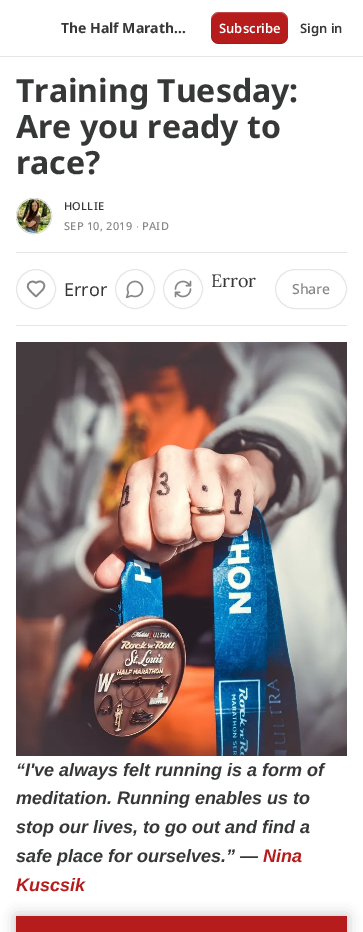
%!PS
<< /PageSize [363 932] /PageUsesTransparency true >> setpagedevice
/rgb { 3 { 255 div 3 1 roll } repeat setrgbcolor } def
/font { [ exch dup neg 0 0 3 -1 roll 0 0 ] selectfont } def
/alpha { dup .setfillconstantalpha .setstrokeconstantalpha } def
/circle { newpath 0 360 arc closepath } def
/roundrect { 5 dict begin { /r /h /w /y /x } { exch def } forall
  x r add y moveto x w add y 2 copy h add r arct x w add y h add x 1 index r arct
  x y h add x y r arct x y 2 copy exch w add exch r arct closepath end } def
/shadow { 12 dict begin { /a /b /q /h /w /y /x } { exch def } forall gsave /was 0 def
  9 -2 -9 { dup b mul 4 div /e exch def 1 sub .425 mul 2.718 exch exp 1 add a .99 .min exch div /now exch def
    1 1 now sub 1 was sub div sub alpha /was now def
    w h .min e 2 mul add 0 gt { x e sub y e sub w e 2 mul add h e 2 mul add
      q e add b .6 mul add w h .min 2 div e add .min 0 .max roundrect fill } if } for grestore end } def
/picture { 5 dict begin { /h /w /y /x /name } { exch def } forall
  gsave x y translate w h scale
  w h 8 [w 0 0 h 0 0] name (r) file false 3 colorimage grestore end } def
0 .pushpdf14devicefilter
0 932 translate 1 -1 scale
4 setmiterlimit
255 255 255 rgb
0 0 363 932 rectfill
230 230 230 rgb
0 56 363 1 rectfill
183 28 28 rgb
211 12 77 32 8 roundrect fill
0.1 alpha
0 0 0 rgb
211 35 moveto 211 46 221 44 229 44 curveto 270 44 lineto 278 44 288 46 288 35 curveto 288 39 284 43 280 43 curveto 219 43 lineto 215 43 211 39 211 35 curveto closepath fill
0.2 alpha
255 255 255 rgb
219 13 moveto 280 13 lineto 284 13 288 17 288 21 curveto 288 10 278 12 270 12 curveto 229 12 lineto 221 12 211 10 211 21 curveto 211 17 215 13 219 13 curveto closepath fill
1 alpha
230 230 230 rgb
34 216 17.5 circle stroke
(img/1.rgb) 16 198 36 36 picture
34 216 17.5 circle stroke
16 252 331 1 rectfill
16 325 331 1 rectfill
135 289 19.5 circle stroke
(img/2.rgb) 125 280 19 19 picture
183 289 19.5 circle stroke
(img/3.rgb) 174 280 18 18 picture
36 289 19.5 circle stroke
134 135 135 rgb
1.7 setlinewidth
1 setlinecap
1 setlinejoin
42 290.5 moveto 48 284.5 41 278.5 36 283 curveto 32.5 279.5 26.5 282.5 28 287.5 curveto 29 290.5 34 294.5 36 296.5 curveto closepath stroke
230 230 230 rgb
1 setlinewidth
0 setlinecap
0 setlinejoin
275.5 269.5 71 39 19.5 roundrect stroke
(img/4.rgb) 16 342 331 414 picture
183 28 28 rgb
16 916 331 16 rectfill
gsave
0 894 moveto 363 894 lineto 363 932 lineto 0 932 lineto closepath 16 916 moveto 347 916 lineto 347 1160 lineto 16 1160 lineto closepath eoclip newpath
0 0 0 rgb
16 916 331 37 0 7 0.25 shadow
grestore
/NotoSans-Bold 14 font
54 55 55 rgb
61 33 moveto (The Half Marath…) show
/NotoSans-SemiBold 13 font
255 255 255 rgb
219 33 moveto (Subscribe) show
54 55 55 rgb
300 33 moveto (Sign in) show
/NotoSans-Bold 32 font
[
  [(Training Tuesday:) 16 102]
  [(Are you ready to) 16 138]
  [(race?) 16 174]
] { aload pop moveto show } forall
/NotoSans-Medium 11 font
64 210 moveto 0.25 0 (HOLLIE) ashow
134 135 135 rgb
64 230 moveto 0.25 0 (SEP 10, 2019) ashow
/LiberationSans-Regular 11 font
136 230 moveto 0.25 0 (∙) ashow
/NotoSans-Medium 11 font
142 230 moveto 0.25 0 (PAID) ashow
/Lora-Regular 18 font
54 55 55 rgb
211 287 moveto (Error) show
/NotoSans-Regular 18 font
64 296 moveto (Error) show
/NotoSans-Medium 14 font
134 135 135 rgb
292 294 moveto (Share) show
/LiberationSans-BoldItalic 18 font
54 55 55 rgb
[
  [(“I've always felt running is a form of) 16 776]
  [(meditation. Running enables us to) 16 804]
  [(stop our lives, to go out and find a) 16 833]
  [(safe place for ourselves.” —) 16 862]
] { aload pop moveto show } forall
183 28 28 rgb
263 862 moveto (Nina) show
16 891 moveto (Kuscsik) show
.poppdf14devicefilter showpage
